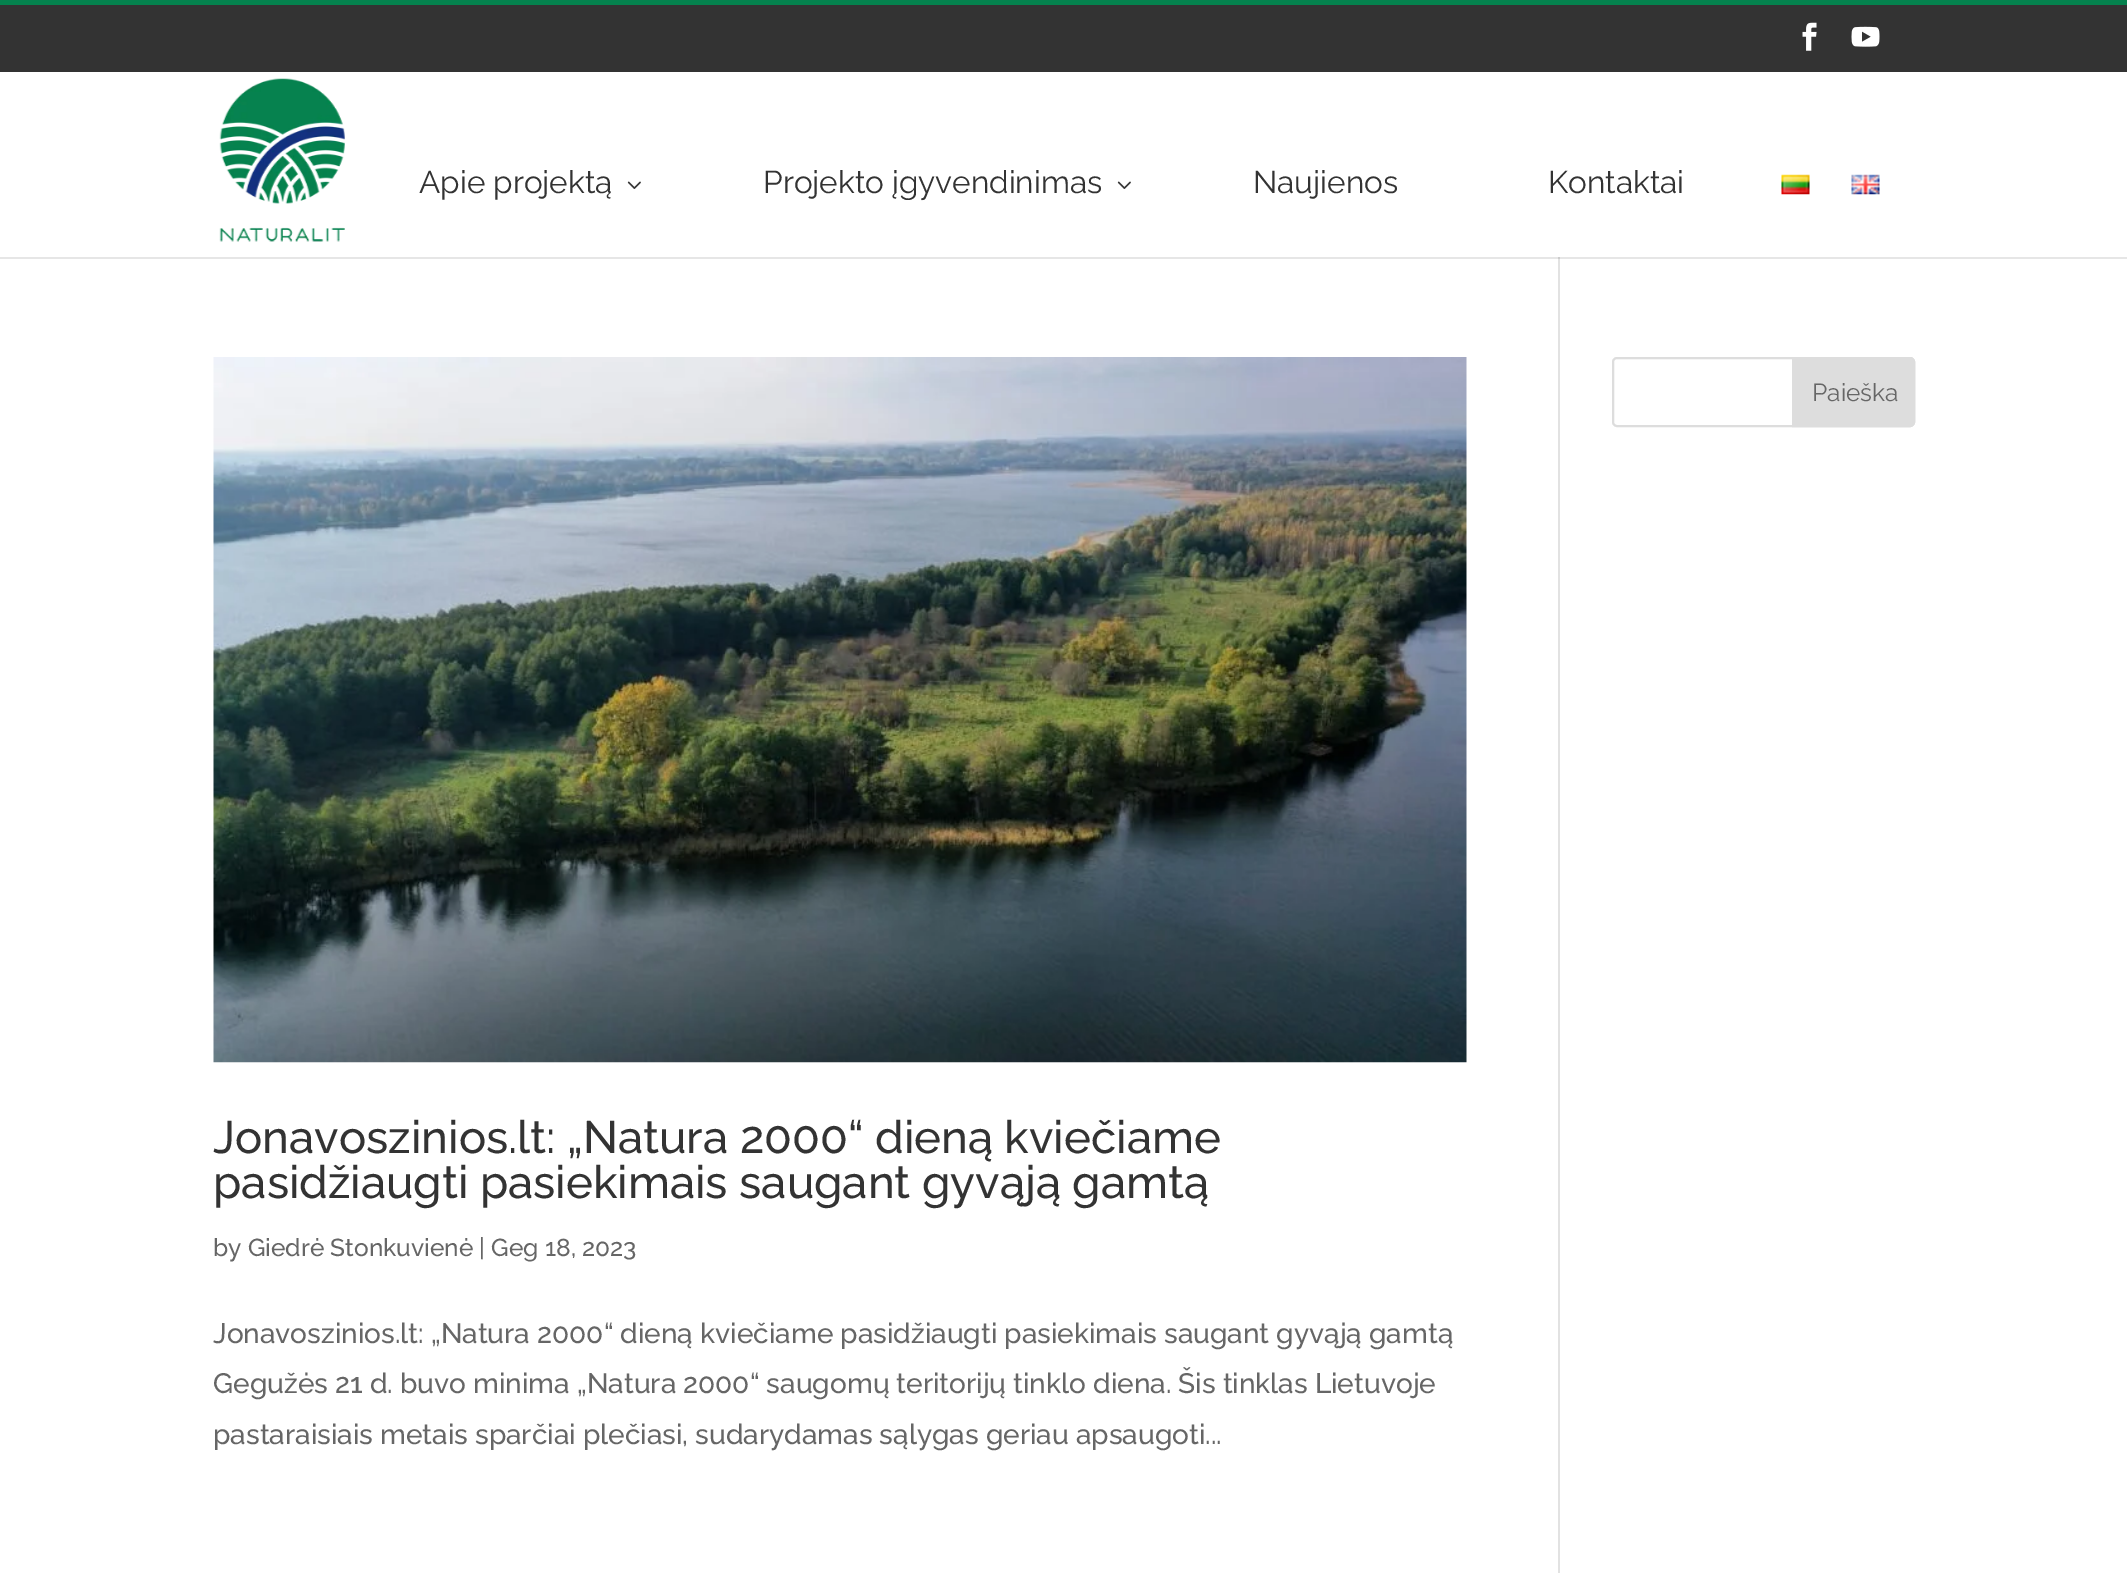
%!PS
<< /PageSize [2127 1573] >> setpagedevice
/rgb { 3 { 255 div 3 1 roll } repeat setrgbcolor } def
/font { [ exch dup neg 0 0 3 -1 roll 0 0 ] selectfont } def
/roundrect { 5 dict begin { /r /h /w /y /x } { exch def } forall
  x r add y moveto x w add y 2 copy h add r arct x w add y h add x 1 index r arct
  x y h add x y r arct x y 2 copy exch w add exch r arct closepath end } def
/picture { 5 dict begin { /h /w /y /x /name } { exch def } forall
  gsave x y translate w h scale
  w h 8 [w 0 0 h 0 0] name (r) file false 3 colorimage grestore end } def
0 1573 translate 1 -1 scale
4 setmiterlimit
255 255 255 rgb
0 0 2127 1573 rectfill
[
  [0 257 2127 2 230 230 230]
  [0 5 2127 67 51 51 51]
  [0 0 2127 5 5 130 78]
] { aload pop rgb rectfill } forall
(img/1.rgb) 1802 22 15 29 picture
(img/2.rgb) 1851 26 29 21 picture
226 226 226 rgb
1558 256 2 1317 rectfill
255 255 255 rgb
1558 256 2 1 rectfill
(img/3.rgb) 219 78 126 164 picture
(img/4.rgb) 627 181 14 8 picture
(img/4.rgb) 1117 181 14 8 picture
(img/5.rgb) 1781 174 29 21 picture
(img/6.rgb) 1851 174 29 21 picture
203 203 203 rgb
1558 257 2 2 rectfill
221 221 221 rgb
2 setlinewidth
1613 358 301 68 4 roundrect stroke
1793 358 moveto 1910 358 lineto 1912 358 1914 360 1914 362 curveto 1914 422 lineto 1914 424 1912 426 1910 426 curveto 1793 426 lineto closepath gsave fill grestore
stroke
(img/7.rgb) 213 357 1254 706 picture
/Raleway-Regular 31.5 font
51 51 51 rgb
[
  [(Apie projektą) 419 193]
  [(Projekto įgyvendinimas) 763 193]
  [(Naujienos) 1253 193]
  [(Kontaktai) 1548 193]
] { aload pop moveto show } forall
/Raleway-Regular 24.5 font
102 102 102 rgb
1812 401 moveto (Paieška) show
/Raleway-Medium 45.5 font
51 51 51 rgb
213 1153 moveto (Jonavoszinios.lt: „Natura 2000“ dieną kviečiame) show
213 1198 moveto (pasidžiaugti pasiekimais saugant gyvąją gamtą) show
/Raleway-Medium 24.5 font
102 102 102 rgb
213 1256 moveto (by Giedrė Stonkuvienė | Geg 18, 2023) show
/Raleway-Medium 28 font
[
  [(Jonavoszinios.lt: „Natura 2000“ dieną kviečiame pasidžiaugti pasiekimais saugant gyvąją gamtą) 213 1343]
  [(Gegužės 21 d. buvo minima „Natura 2000“ saugomų teritorijų tinklo diena. Šis tinklas Lietuvoje) 213 1393]
  [(pastaraisiais metais sparčiai plečiasi, sudarydamas sąlygas geriau apsaugoti...) 213 1444]
] { aload pop moveto show } forall
showpage
